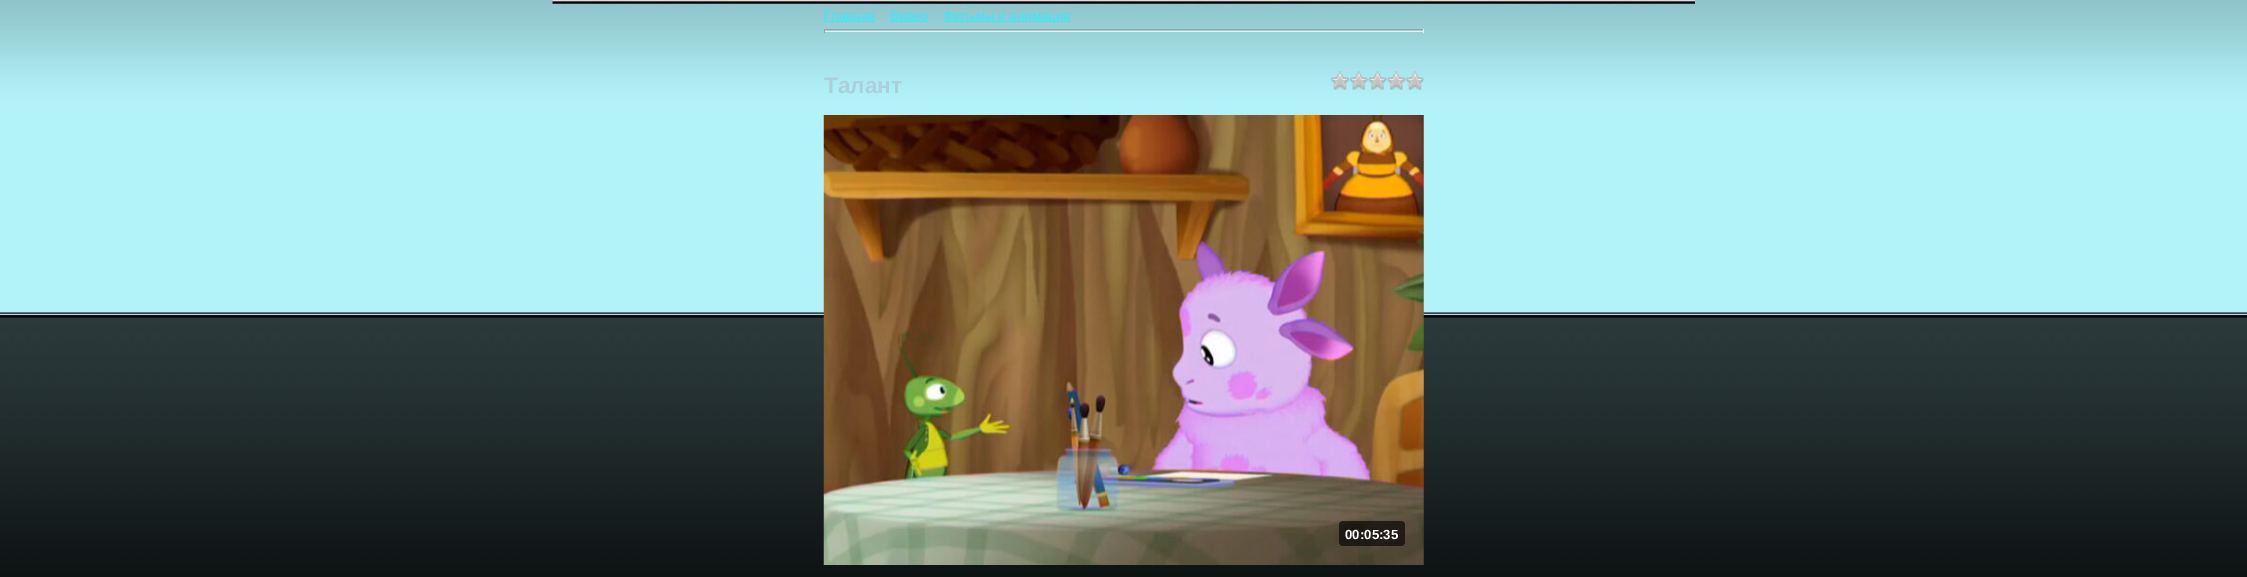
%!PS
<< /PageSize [2247 577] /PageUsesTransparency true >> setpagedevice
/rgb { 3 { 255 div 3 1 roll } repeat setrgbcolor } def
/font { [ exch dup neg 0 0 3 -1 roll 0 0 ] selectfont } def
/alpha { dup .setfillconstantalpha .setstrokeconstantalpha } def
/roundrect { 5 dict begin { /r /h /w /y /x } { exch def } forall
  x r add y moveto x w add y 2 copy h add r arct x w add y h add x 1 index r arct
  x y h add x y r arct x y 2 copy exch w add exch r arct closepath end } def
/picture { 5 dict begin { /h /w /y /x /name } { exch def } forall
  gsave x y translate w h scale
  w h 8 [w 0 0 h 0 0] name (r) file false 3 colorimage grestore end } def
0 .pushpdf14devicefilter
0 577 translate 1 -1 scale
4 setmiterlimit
255 255 255 rgb
0 0 2247 577 rectfill
(img/1.rgb) 0 0 2247 577 picture
(img/2.rgb) 552 0 1143 4 picture
[
  [824 21 51 1 48 235 255]
  [890 21 39 1 48 235 255]
  [944 21 127 1 48 235 255]
  [824 29 600 1 159 159 159]
  [1423 29 1 4 238 238 238]
  [824 31 600 1 238 238 238]
  [824 29 1 4 159 159 159]
] { aload pop rgb rectfill } forall
(img/3.rgb) 1330 71 94 19 picture
(img/4.rgb) 823 115 601 450 picture
0.63 alpha
0 0 0 rgb
1339 521 66 25 4 roundrect fill
/LiberationSans-Regular 13.25 font
1 alpha
48 235 255 rgb
[
  [(Главная) 824 20]
  [(Видео) 890 20]
  [(Фильмы и анимация) 944 20]
] { aload pop moveto show } forall
/LiberationSans-Bold 22.5 font
171 208 218 rgb
824 93 moveto (Талант) show
/LiberationSans-Bold 13.25 font
255 255 255 rgb
1345 539 moveto (00:05:35) show
.poppdf14devicefilter showpage
